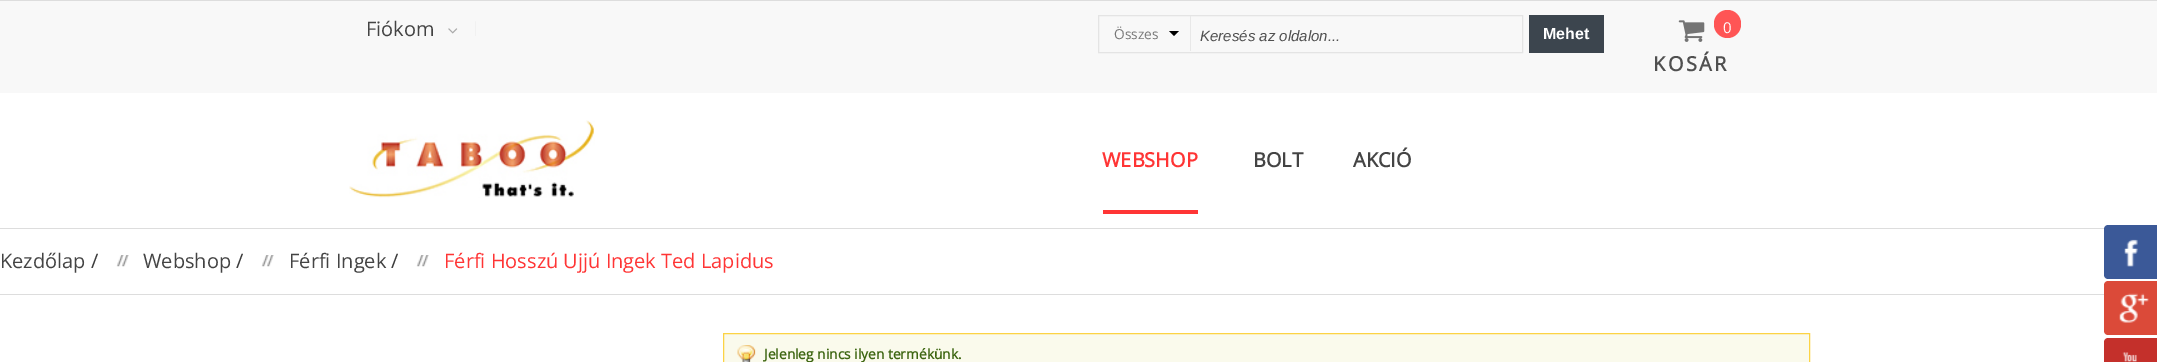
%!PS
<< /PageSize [2157 362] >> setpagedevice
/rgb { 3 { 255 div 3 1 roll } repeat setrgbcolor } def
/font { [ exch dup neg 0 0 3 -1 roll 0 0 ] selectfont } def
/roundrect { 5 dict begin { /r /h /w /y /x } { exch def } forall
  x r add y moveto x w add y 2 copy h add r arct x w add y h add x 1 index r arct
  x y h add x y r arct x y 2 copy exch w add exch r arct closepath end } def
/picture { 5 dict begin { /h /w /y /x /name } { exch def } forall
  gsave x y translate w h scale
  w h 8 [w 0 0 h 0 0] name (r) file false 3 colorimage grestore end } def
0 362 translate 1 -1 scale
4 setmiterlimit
255 255 255 rgb
0 0 2157 362 rectfill
248 248 248 rgb
0 1 2157 92 rectfill
221 221 221 rgb
0 0 2157 1 rectfill
(img/1.rgb) 475 21 1 15 picture
(img/2.rgb) 448 28 10 6 picture
228 228 228 rgb
1098.5 15.5 424 37 rectstroke
232 232 232 rgb
1190 16 1 35 rectfill
0 0 0 rgb
1169 31 moveto 1179 31 lineto 1174 36 lineto closepath fill
60 69 78 rgb
1529 15 75 38 rectfill
255 85 85 rgb
1714 10 27 28 13.5 roundrect fill
(img/3.rgb) 1678 20 27 22 picture
221 221 221 rgb
0 228 2105 1 rectfill
(img/4.rgb) 349 120 246 78 picture
255 53 53 rgb
1103 210 95 4 rectfill
221 221 221 rgb
0 294 2104 1 rectfill
(img/5.rgb) 116 255 13 12 picture
(img/5.rgb) 261 255 13 12 picture
(img/5.rgb) 416 255 13 12 picture
250 250 236 rgb
724 334 1085 28 rectfill
(img/6.rgb) 737 345 19 17 picture
252 211 68 rgb
723.5 333.5 1086 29 rectstroke
59 89 152 rgb
2108 225 moveto 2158 225 lineto 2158 279 lineto 2108 279 lineto 2106 279 2104 277 2104 275 curveto 2104 229 lineto 2104 227 2106 225 2108 225 curveto closepath fill
(img/7.rgb) 2124 239 14 28 picture
219 74 57 rgb
2108 281 moveto 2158 281 lineto 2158 335 lineto 2108 335 lineto 2106 335 2104 333 2104 331 curveto 2104 285 lineto 2104 283 2106 281 2108 281 curveto closepath fill
(img/8.rgb) 2119 293 30 30 picture
196 48 43 rgb
2108 338 moveto 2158 338 lineto 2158 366 lineto 2108 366 lineto 2106 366 2104 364 2104 362 curveto 2104 342 lineto 2104 340 2106 338 2108 338 curveto closepath fill
(img/9.rgb) 2122 352 15 10 picture
/OpenSans-Regular 20 font
68 68 68 rgb
366 36 moveto (Fiókom) show
/OpenSans-Regular 13.75 font
119 119 119 rgb
1114 39 moveto (Összes) show
/LiberationSans-Italic 15 font
80 80 80 rgb
1200 41 moveto (Keresés az oldalon...) show
/LiberationSans-Bold 16 font
255 255 255 rgb
1543 39 moveto (Mehet) show
/OpenSans-Regular 15 font
1723 33 moveto (0) show
/OpenSans-Bold 20 font
80 80 80 rgb
1653 71 moveto 2.5 0 (KOSÁR) ashow
255 53 53 rgb
1102 167 moveto (WEBSHOP) show
68 68 68 rgb
1253 167 moveto (BOLT) show
1353 167 moveto (AKCIÓ) show
/OpenSans-Regular 20 font
0 268 moveto (Kezdőlap) show
59 59 59 rgb
91 268 moveto (/) show
68 68 68 rgb
143 268 moveto (Webshop) show
59 59 59 rgb
236 268 moveto (/) show
68 68 68 rgb
289 268 moveto (Férfi Ingek) show
59 59 59 rgb
391 268 moveto (/) show
255 53 53 rgb
444 268 moveto (Férfi Hosszú Ujjú Ingek Ted Lapidus) show
/OpenSans-Bold 13.75 font
61 102 17 rgb
764 359 moveto (Jelenleg nincs ilyen termékünk.) show
showpage
